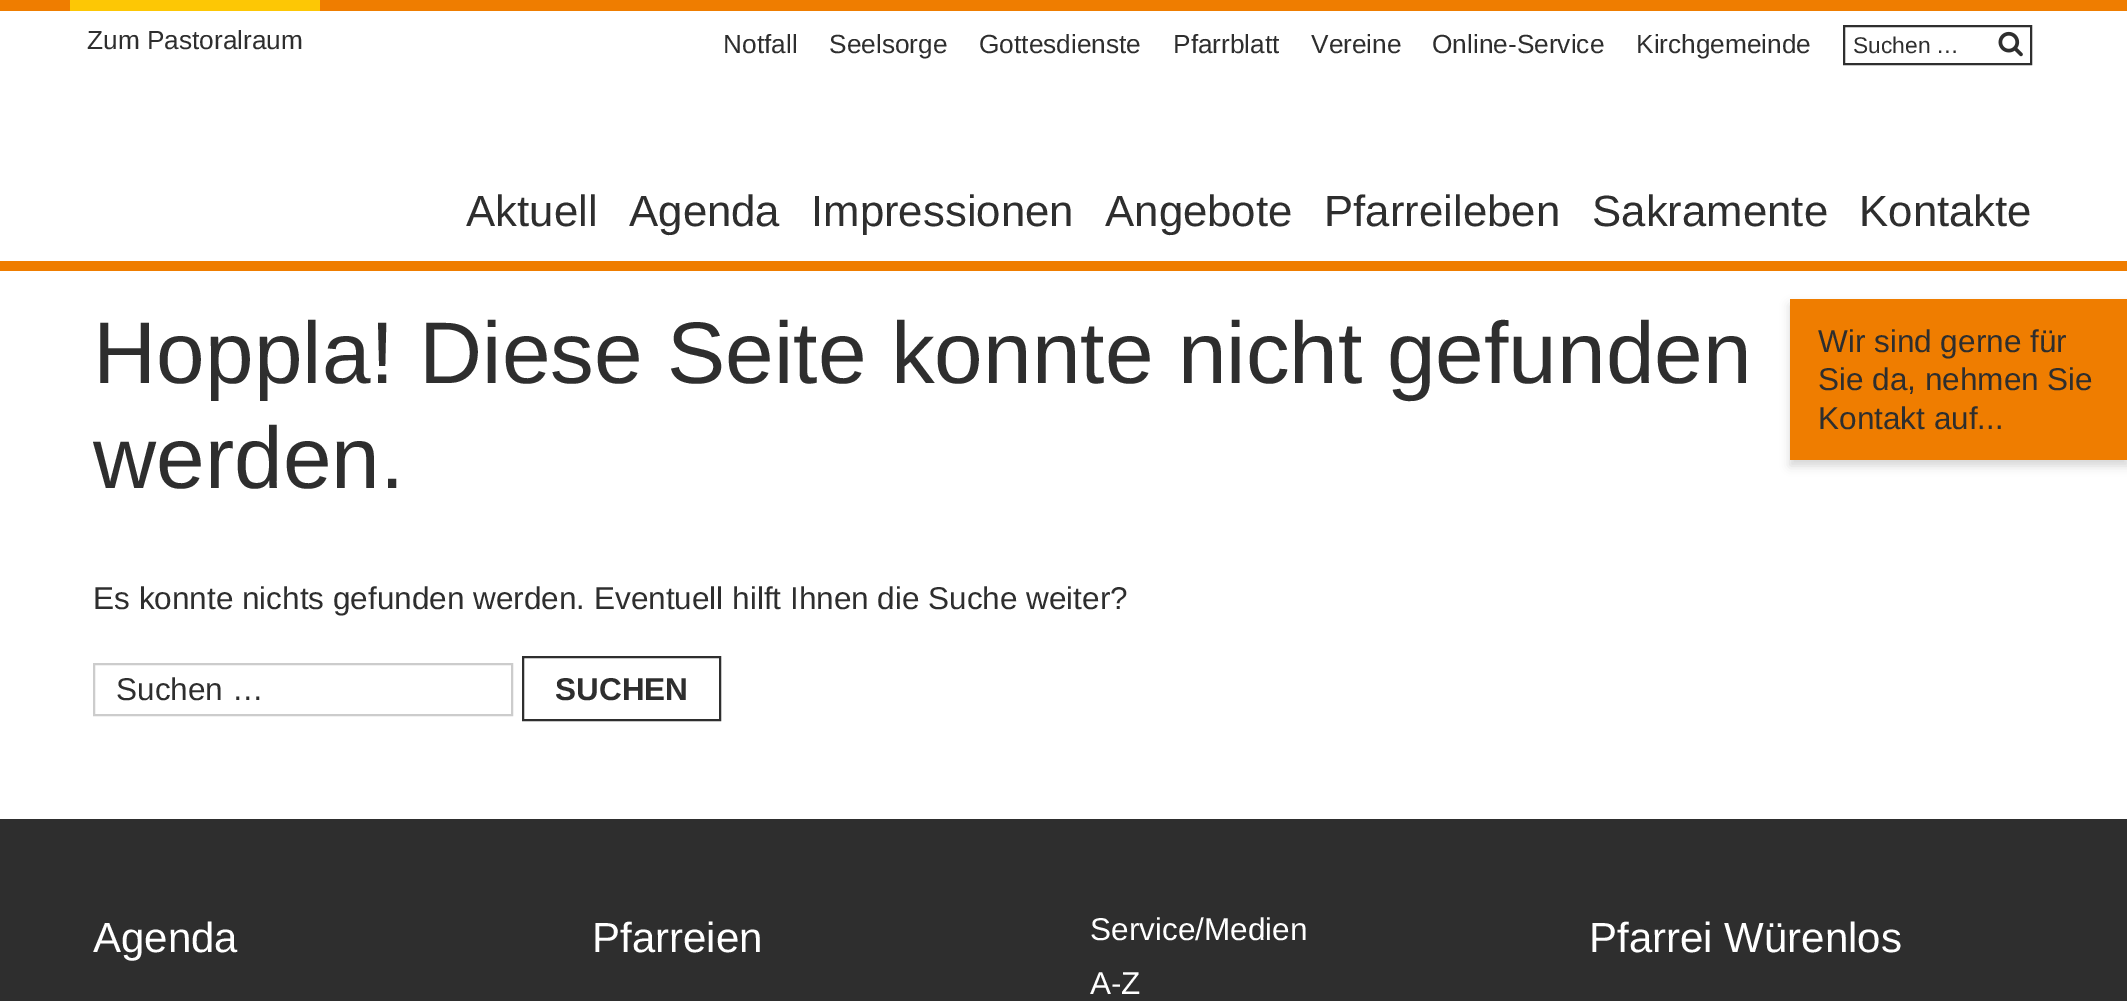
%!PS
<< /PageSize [2127 1001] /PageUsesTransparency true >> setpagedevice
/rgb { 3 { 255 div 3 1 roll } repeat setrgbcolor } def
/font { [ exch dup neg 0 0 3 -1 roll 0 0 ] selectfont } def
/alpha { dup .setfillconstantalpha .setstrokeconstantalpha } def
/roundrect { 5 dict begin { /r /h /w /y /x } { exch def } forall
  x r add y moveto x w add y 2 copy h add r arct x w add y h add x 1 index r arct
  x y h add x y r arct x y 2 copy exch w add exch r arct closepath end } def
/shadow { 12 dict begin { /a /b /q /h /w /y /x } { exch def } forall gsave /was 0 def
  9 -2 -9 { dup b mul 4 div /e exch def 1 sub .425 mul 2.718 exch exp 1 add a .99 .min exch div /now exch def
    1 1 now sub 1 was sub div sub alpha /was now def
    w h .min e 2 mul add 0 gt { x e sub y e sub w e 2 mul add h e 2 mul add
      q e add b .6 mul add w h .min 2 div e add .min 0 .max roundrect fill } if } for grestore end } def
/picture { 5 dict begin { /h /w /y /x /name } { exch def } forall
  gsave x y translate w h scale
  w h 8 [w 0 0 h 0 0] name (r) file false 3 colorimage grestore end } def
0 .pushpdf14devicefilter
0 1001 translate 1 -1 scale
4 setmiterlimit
255 255 255 rgb
0 0 2127 1001 rectfill
239 125 0 rgb
0 0 2127 11 rectfill
253 199 5 rgb
70 0 250 11 rectfill
46 46 46 rgb
2 setlinewidth
1844 26 187 38 rectstroke
(img/1.rgb) 1998 31 25 26 picture
239 125 0 rgb
0 261 2127 10 rectfill
204 204 204 rgb
94 664 418 51 rectstroke
46 46 46 rgb
523 657 197 63 rectstroke
0 0 0 rgb
1790 305 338 161 0 5 0.16 shadow
239 125 0 rgb
1790 299 337 161 rectfill
46 46 46 rgb
0 819 2127 182 rectfill
/LiberationSans-Regular 26.25 font
[
  [(Zum Pastoralraum) 87 49]
  [(Notfall) 723 53]
  [(Seelsorge) 829 53]
  [(Gottesdienste) 979 53]
  [(Pfarrblatt) 1173 53]
  [(Vereine) 1311 53]
  [(Online-Service) 1432 53]
  [(Kirchgemeinde) 1636 53]
] { aload pop moveto show } forall
/LiberationSans-Regular 22.75 font
1853 53 moveto (Suchen …) show
/LiberationSans-Regular 43.75 font
[
  [(Aktuell) 466 226]
  [(Agenda) 629 226]
  [(Impressionen) 811 226]
  [(Angebote) 1105 226]
  [(Pfarreileben) 1324 226]
  [(Sakramente) 1592 226]
  [(Kontakte) 1859 226]
] { aload pop moveto show } forall
/LiberationSans-Regular 87.5 font
93 383 moveto (Hoppla! Diese Seite konnte nicht gefunden) show
93 488 moveto (werden.) show
/LiberationSans-Regular 31.5 font
93 609 moveto (Es konnte nichts gefunden werden. Eventuell hilft Ihnen die Suche weiter?) show
116 700 moveto (Suchen …) show
/LiberationSans-Bold 31.5 font
555 700 moveto (SUCHEN) show
/LiberationSans-Regular 31.5 font
[
  [(Wir sind gerne für) 1818 352]
  [(Sie da, nehmen Sie) 1818 390]
  [(Kontakt auf...) 1818 429]
] { aload pop moveto show } forall
/LiberationSans-Regular 42 font
255 255 255 rgb
93 952 moveto (Agenda) show
592 952 moveto (Pfarreien) show
/LiberationSans-Regular 31.5 font
1090 940 moveto (Service/Medien) show
1090 994 moveto (A-Z) show
/LiberationSans-Regular 42 font
1589 952 moveto (Pfarrei Würenlos) show
.poppdf14devicefilter showpage
